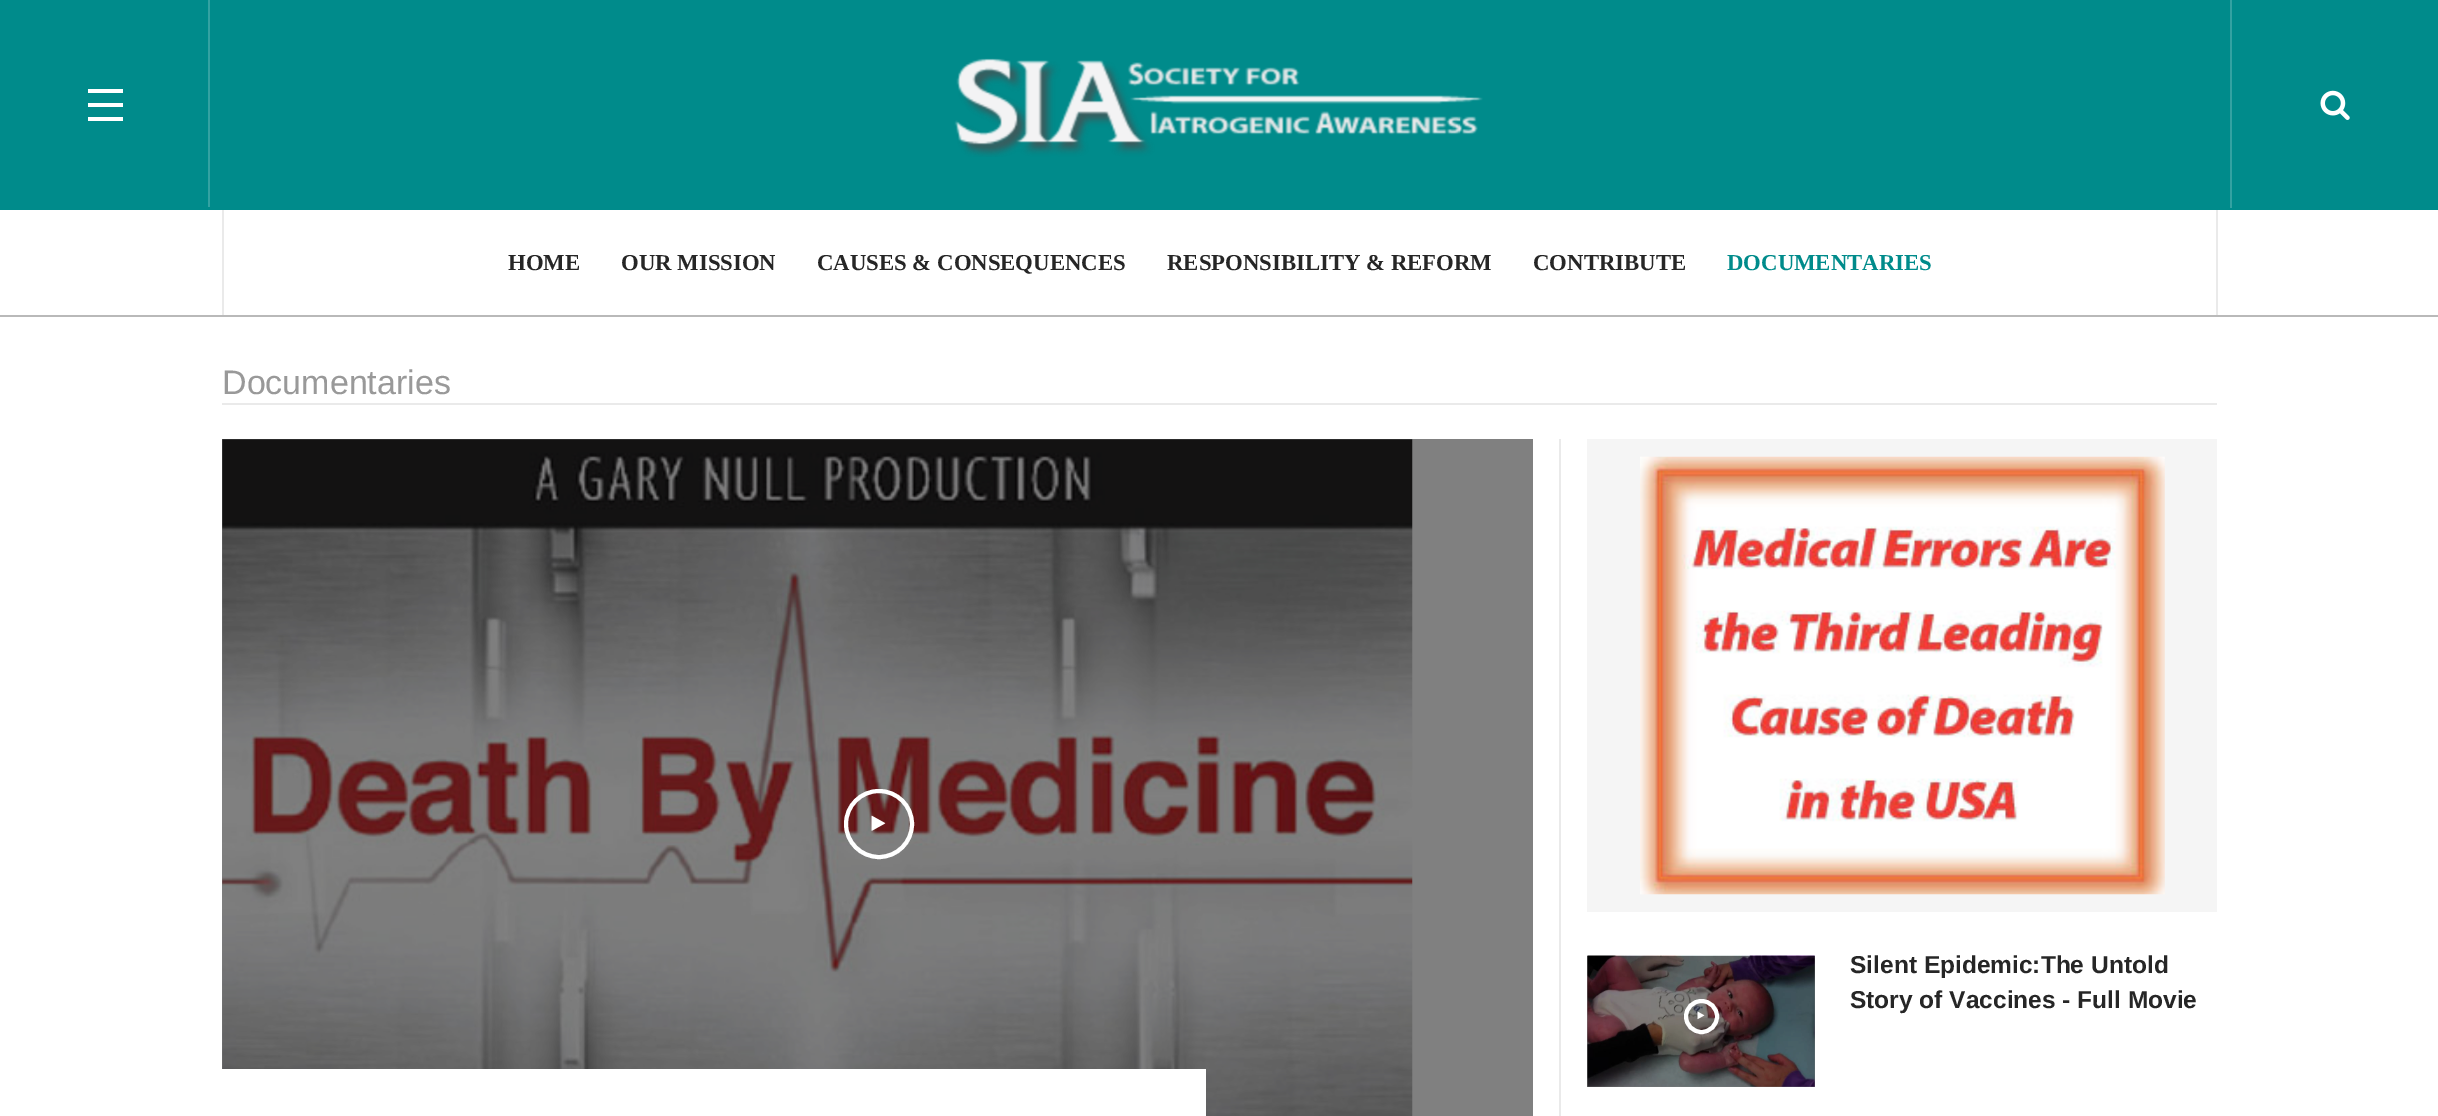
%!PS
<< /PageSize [2438 1116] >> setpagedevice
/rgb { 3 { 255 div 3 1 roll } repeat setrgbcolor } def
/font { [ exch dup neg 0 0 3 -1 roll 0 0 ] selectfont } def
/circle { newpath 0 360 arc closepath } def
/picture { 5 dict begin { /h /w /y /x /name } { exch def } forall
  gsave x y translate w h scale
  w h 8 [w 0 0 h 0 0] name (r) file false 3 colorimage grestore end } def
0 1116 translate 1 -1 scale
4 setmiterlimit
255 255 255 rgb
0 0 2438 1116 rectfill
[
  [1587 956 228 131 128 128 128]
  [222 439 1311 677 128 128 128]
  [0 0 2438 210 0 139 139]
  [208 0 2 207 51 162 162]
  [88 103 35 4 255 255 255]
  [88 89 35 4 255 255 255]
  [88 117 35 4 255 255 255]
] { aload pop rgb rectfill } forall
(img/1.rgb) 954 58 529 99 picture
51 162 162 rgb
2230 0 2 208 rectfill
(img/2.rgb) 2320 90 30 30 picture
[
  [0 315 2438 2 185 185 185]
  [2216 210 2 105 234 234 234]
  [222 210 2 105 234 234 234]
  [222 403 1995 2 234 234 234]
  [1559 439 2 677 234 234 234]
] { aload pop rgb rectfill } forall
(img/3.rgb) 222 439 1191 677 picture
255 255 255 rgb
4 setlinewidth
879 824 33 circle stroke
(img/4.rgb) 871 815 15 16 picture
222 1069 984 47 rectfill
245 245 245 rgb
1587 439 630 473 rectfill
(img/5.rgb) 1640 456 525 439 picture
(img/6.rgb) 1587 955 228 132 picture
255 255 255 rgb
1701.5 1016.5 15.5 circle stroke
(img/7.rgb) 1697 1011 8 9 picture
/LiberationSerif-Bold 22.75 font
38 38 38 rgb
[
  [(HOME) 508 270]
  [(OUR MISSION) 621 270]
  [(CAUSES & CONSEQUENCES) 817 270]
  [(RESPONSIBILITY & REFORM) 1167 270]
  [(CONTRIBUTE) 1533 270]
] { aload pop moveto show } forall
0 139 139 rgb
1727 270 moveto (DOCUMENTARIES) show
/LiberationSans-Regular 34 font
153 153 153 rgb
222 394 moveto (Documentaries) show
/LiberationSans-Bold 24.5 font
38 38 38 rgb
1850 973 moveto (Silent Epidemic:The Untold) show
1850 1008 moveto (Story of Vaccines - Full Movie) show
showpage
